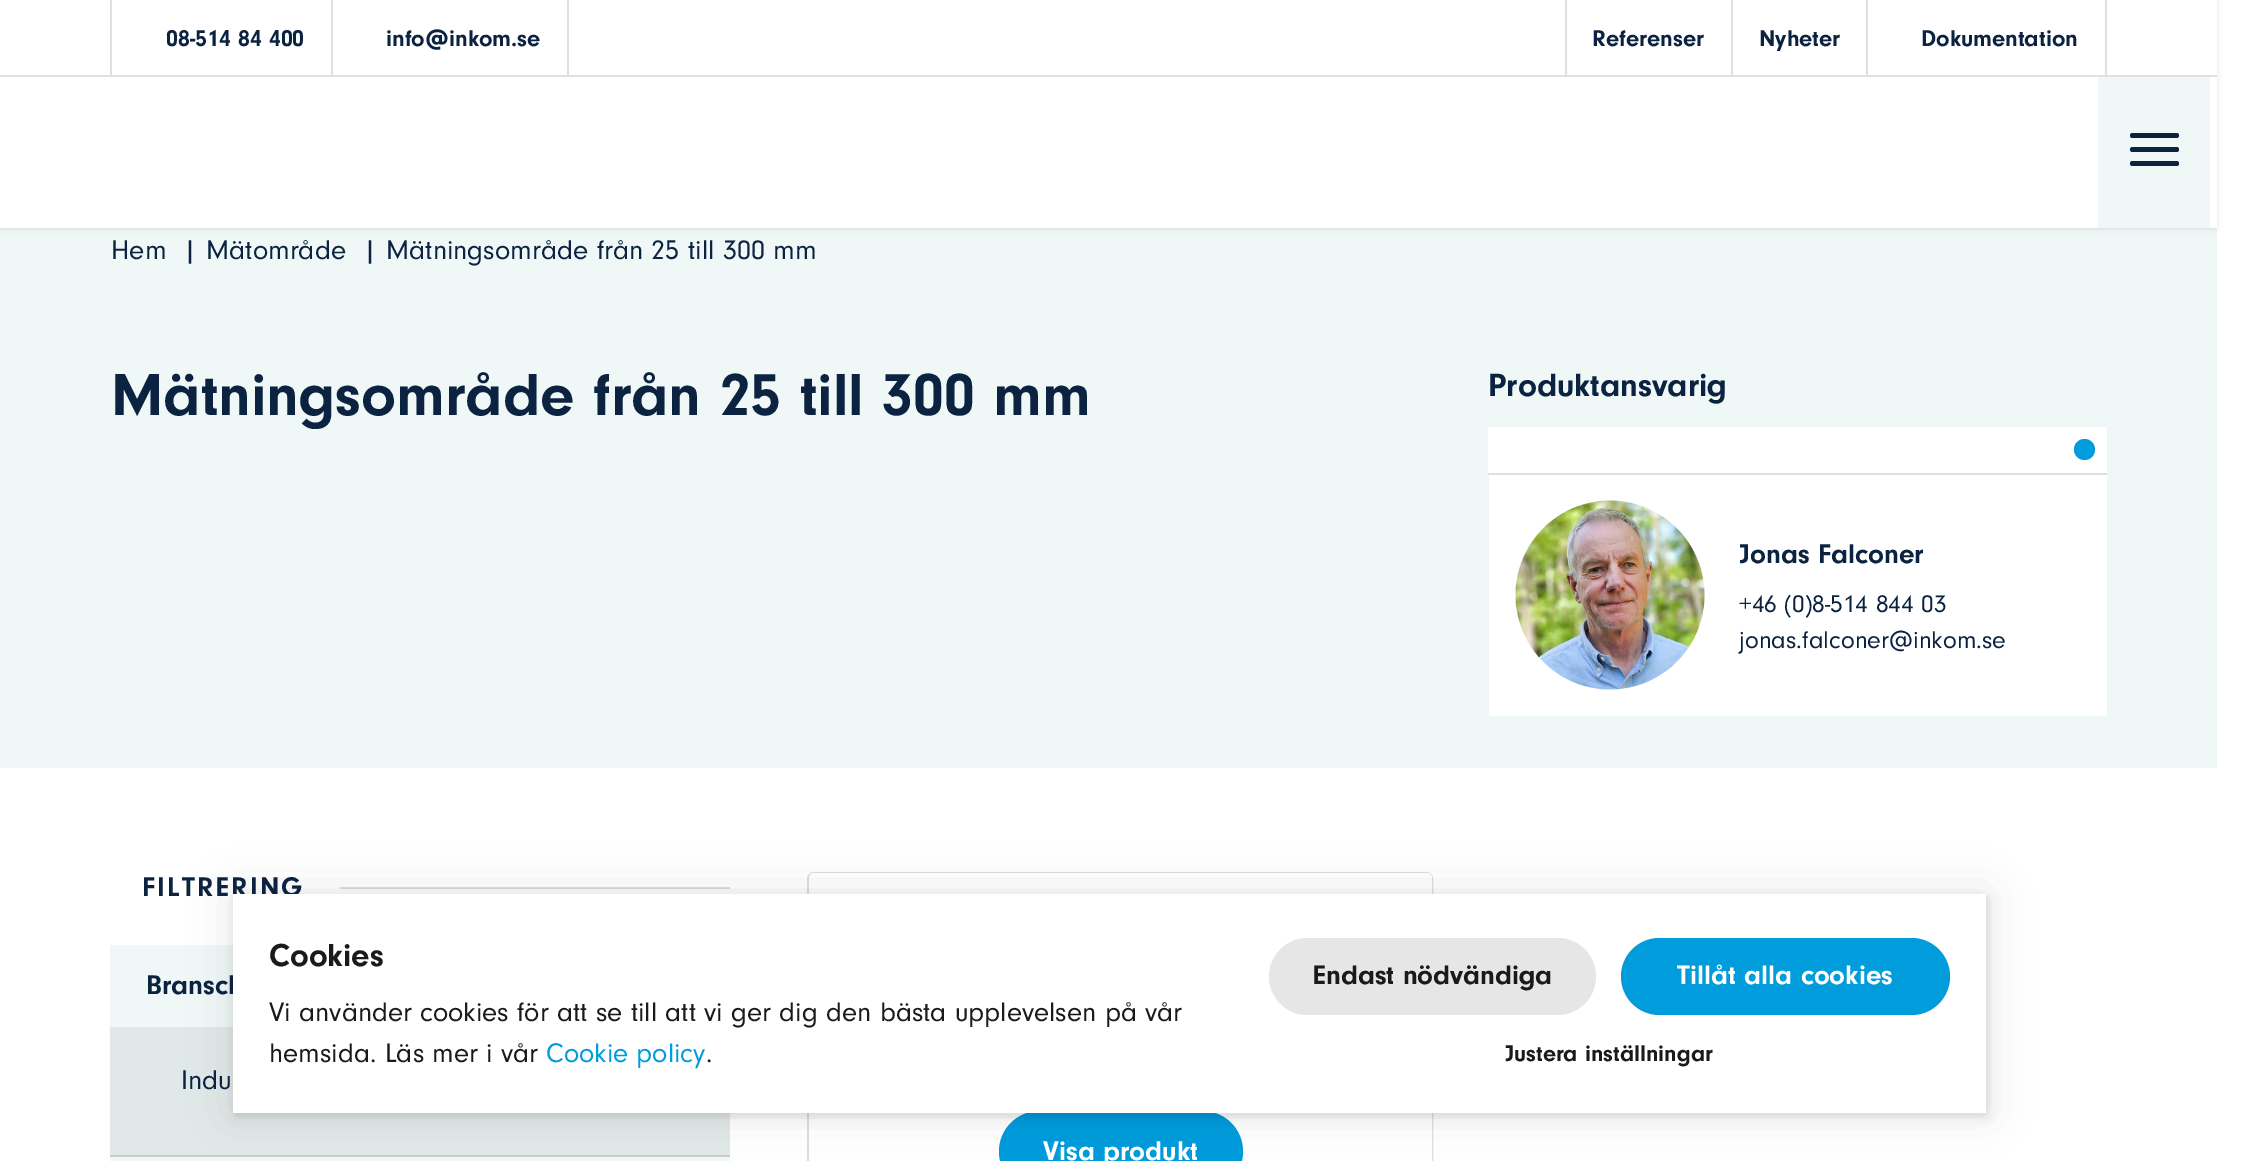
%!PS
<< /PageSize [2242 1161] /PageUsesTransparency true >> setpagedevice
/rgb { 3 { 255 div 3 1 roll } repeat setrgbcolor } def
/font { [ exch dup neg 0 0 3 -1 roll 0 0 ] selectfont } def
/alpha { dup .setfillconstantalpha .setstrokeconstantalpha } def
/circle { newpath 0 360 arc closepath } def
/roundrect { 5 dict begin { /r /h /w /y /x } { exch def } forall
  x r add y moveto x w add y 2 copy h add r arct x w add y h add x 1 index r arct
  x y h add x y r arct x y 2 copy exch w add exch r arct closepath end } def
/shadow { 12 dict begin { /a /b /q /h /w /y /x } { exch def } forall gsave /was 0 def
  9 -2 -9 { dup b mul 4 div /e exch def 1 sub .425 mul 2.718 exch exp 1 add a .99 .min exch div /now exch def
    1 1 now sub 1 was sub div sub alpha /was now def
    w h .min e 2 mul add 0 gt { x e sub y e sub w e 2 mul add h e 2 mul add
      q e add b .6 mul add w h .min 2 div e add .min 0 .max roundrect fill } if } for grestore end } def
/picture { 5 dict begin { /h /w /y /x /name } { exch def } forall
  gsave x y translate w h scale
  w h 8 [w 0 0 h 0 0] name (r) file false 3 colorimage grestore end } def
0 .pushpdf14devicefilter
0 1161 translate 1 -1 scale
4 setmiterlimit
255 255 255 rgb
0 0 2242 1161 rectfill
239 248 247 rgb
0 228 2217 540 rectfill
0 0 0 rgb
0 2 2217 227 0 2.5 0.1 shadow
[
  [0 0 2217 228 255 255 255]
  [0 75 2217 2 224 224 224]
  [567 0 2 75 224 224 224]
  [110 0 2 75 224 224 224]
  [331 0 2 75 224 224 224]
  [2105 0 2 75 224 224 224]
  [1565 0 2 75 224 224 224]
  [1731 0 2 75 224 224 224]
  [1866 0 2 75 224 224 224]
  [2098 77 112 151 239 248 247]
] { aload pop rgb rectfill } forall
11 35 65 rgb
2130 147 49 5 2.5 roundrect fill
2130 133 49 5 2.5 roundrect fill
2130 161 49 5 2.5 roundrect fill
255 255 255 rgb
1488 427 619 46 rectfill
224 224 224 rgb
1488 473 619 2 rectfill
0 156 220 rgb
2084.5 449.5 10.5 circle fill
255 255 255 rgb
1489 475 618 241 rectfill
(img/1.rgb) 1515 500 190 190 picture
[
  [340 887 390 2 221 221 221]
  [110 945 620 216 239 248 247]
  [110 1027 620 128 225 233 232]
  [110 1155 620 2 204 204 204]
] { aload pop rgb rectfill } forall
221 221 221 rgb
2 setlinewidth
808 873 624 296 6 roundrect stroke
255 255 255 rgb
809 873 623 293 5 roundrect fill
0 156 220 rgb
999 1111 244 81 40.5 roundrect fill
0 0 0 rgb
235 898 1753 219 0 4.5 0.1 shadow
233 894 1753 219 0 22 0.1 shadow
/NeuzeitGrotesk-Bold 23.75 font
11 35 65 rgb
[
  [(08-514 84 400) 166 46]
  [(info@inkom.se) 386 46]
  [(Referenser) 1592 46]
  [(Nyheter) 1759 46]
  [(Dokumentation) 1921 46]
] { aload pop moveto show } forall
/NeuzeitGrotesk-Regular 28 font
[
  [(Hem) 111 259]
  [(|) 183 259]
  [(Mätområde) 206 259]
  [(|) 363 259]
  [(Mätningsområde från 25 till 300 mm) 386 259]
] { aload pop moveto show } forall
/NeuzeitGrotesk-Bold 61.6 font
111 415 moveto (Mätningsområde från 25 till 300 mm) show
/NeuzeitGrotesk-Bold 33.5 font
1488 396 moveto (Produktansvarig) show
/NeuzeitGrotesk-Bold 28 font
1739 563 moveto (Jonas Falconer) show
/NeuzeitGrotesk-Regular 25.25 font
1739 612 moveto (+46 \(0\)8-514 844 03) show
1739 648 moveto (jonas.falconer@inkom.se) show
/NeuzeitGrotesk-Bold 28 font
142 896 moveto 2.25 0 (FILTRERING) ashow
146 994 moveto (Bransch) show
/NeuzeitGrotesk-Regular 28 font
181 1089 moveto (Indu) show
/NeuzeitGrotesk-Bold 28 font
255 255 255 rgb
1043 1160 moveto (Visa produkt) show
233 894 1753 219 rectfill
/NeuzeitGrotesk-Bold 33 font
26 26 26 rgb
269 966 moveto (Cookies) show
/NeuzeitGrotesk-Regular 27.9 font
269 1021 moveto (Vi använder cookies för att se till att vi ger dig den bästa upplevelsen på vår) show
269 1062 moveto (hemsida. Läs mer i vår) show
0 156 220 rgb
546 1062 moveto (Cookie policy) show
26 26 26 rgb
706 1062 moveto (.) show
230 230 230 rgb
1269 938 327 77 38.5 roundrect fill
/NeuzeitGrotesk-Bold 27.9 font
26 26 26 rgb
1313 984 moveto (Endast nödvändiga) show
0 156 220 rgb
1621 938 329 77 38.5 roundrect fill
255 255 255 rgb
1677 984 moveto (Tillåt alla cookies) show
/NeuzeitGrotesk-Bold 23.5 font
26 26 26 rgb
1505 1061 moveto (Justera inställningar) show
.poppdf14devicefilter showpage
